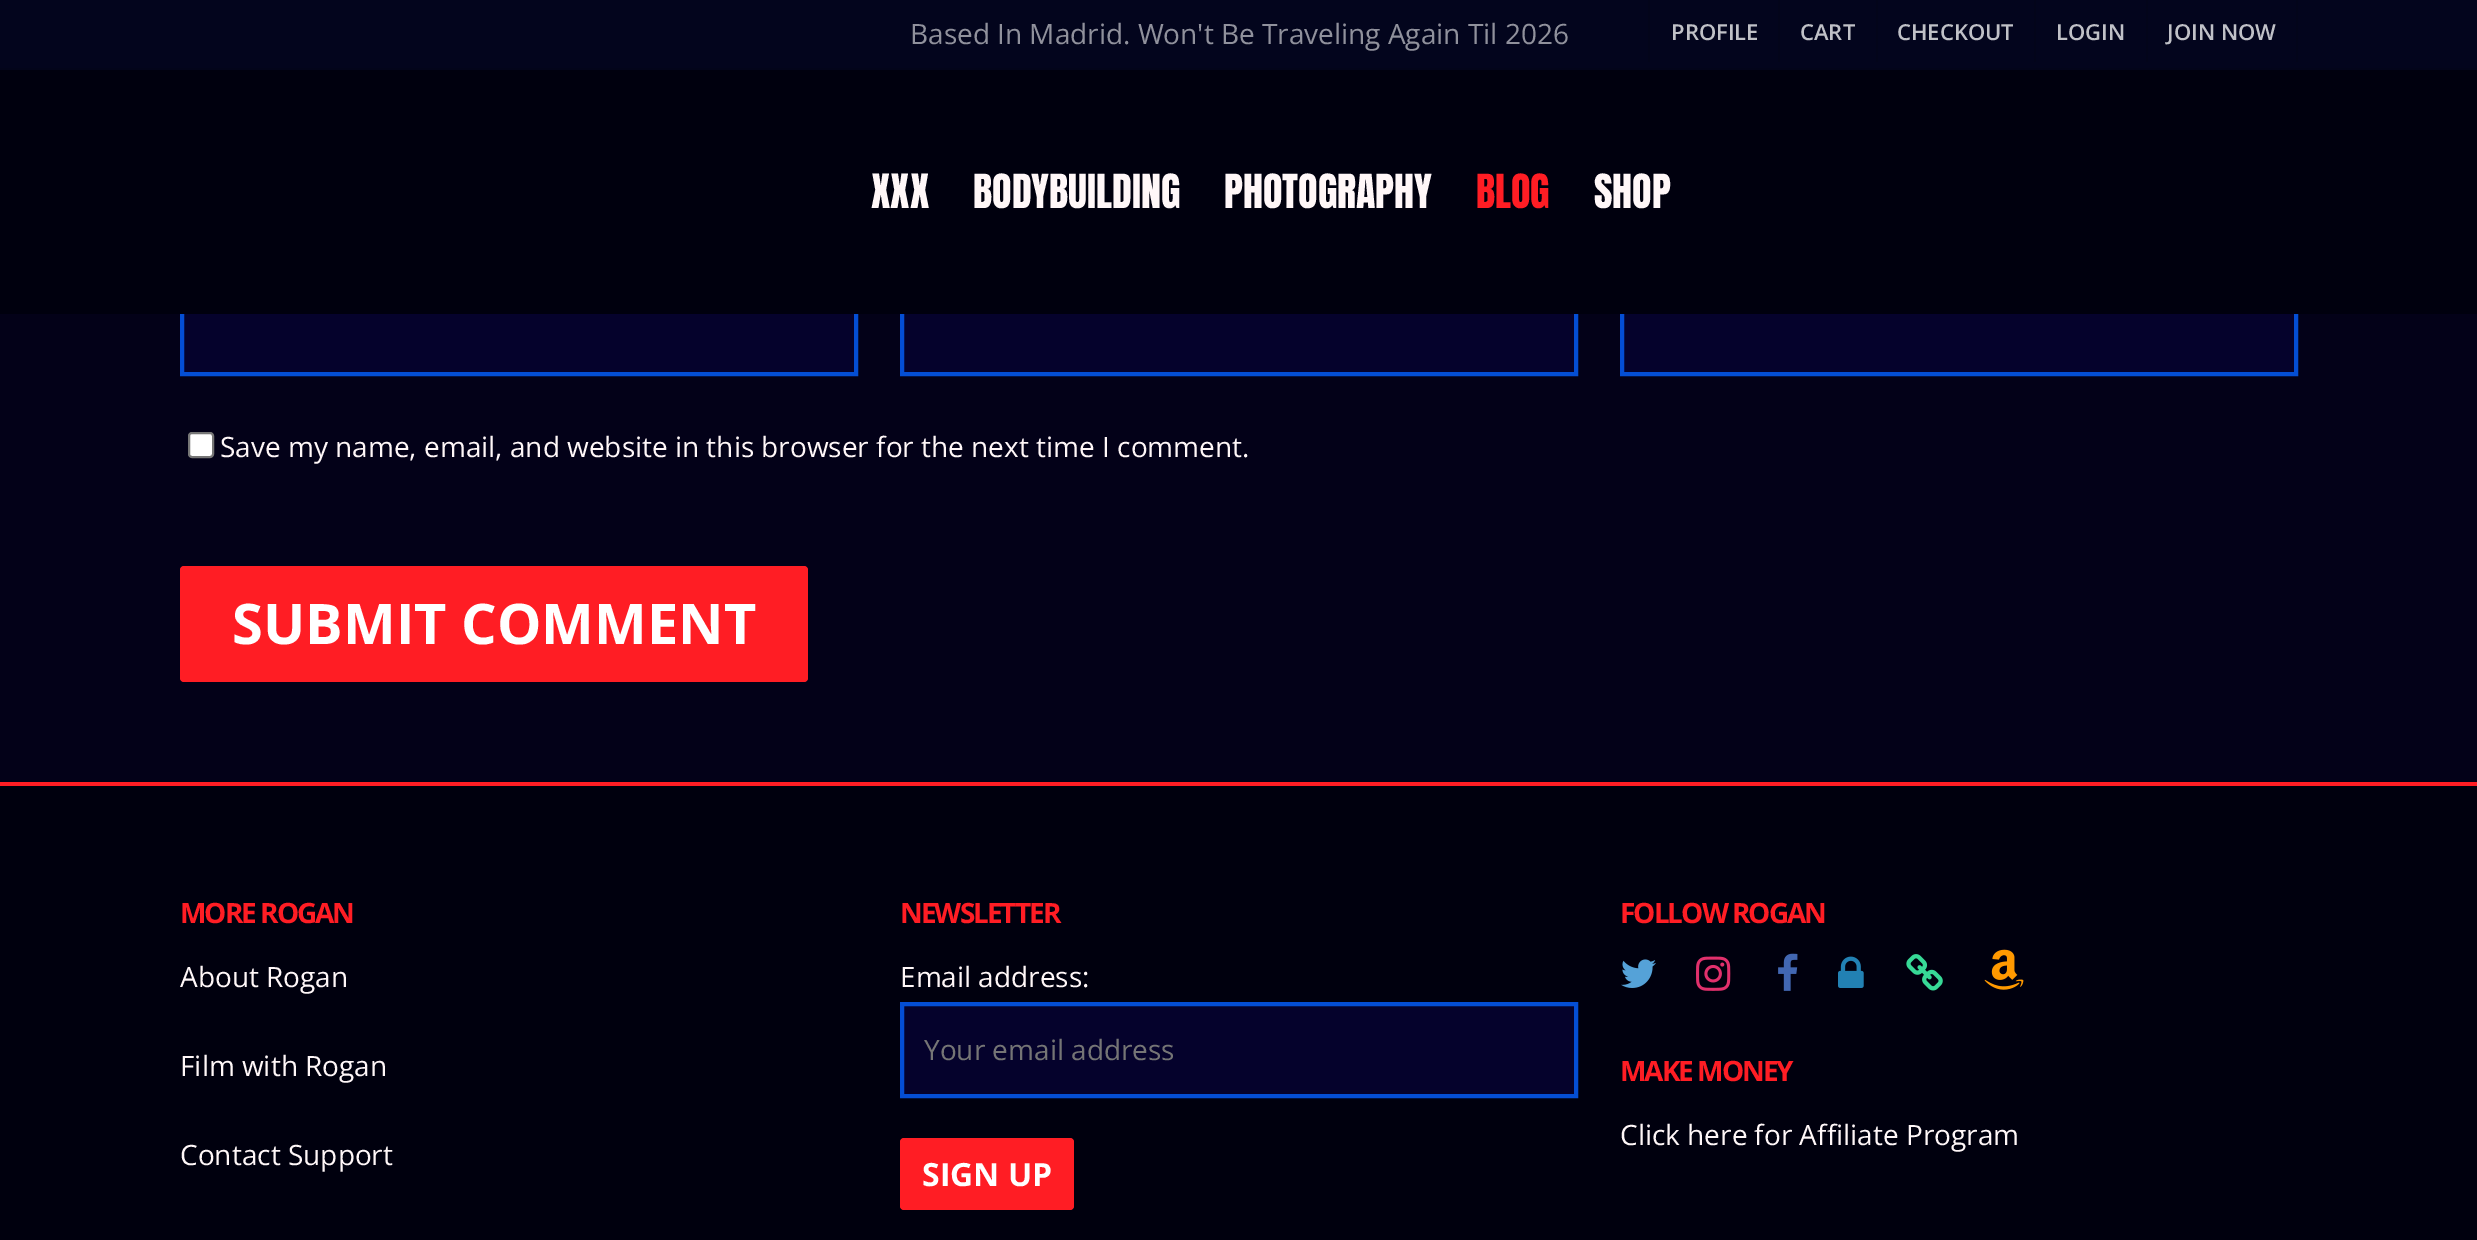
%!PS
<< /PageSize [2477 1240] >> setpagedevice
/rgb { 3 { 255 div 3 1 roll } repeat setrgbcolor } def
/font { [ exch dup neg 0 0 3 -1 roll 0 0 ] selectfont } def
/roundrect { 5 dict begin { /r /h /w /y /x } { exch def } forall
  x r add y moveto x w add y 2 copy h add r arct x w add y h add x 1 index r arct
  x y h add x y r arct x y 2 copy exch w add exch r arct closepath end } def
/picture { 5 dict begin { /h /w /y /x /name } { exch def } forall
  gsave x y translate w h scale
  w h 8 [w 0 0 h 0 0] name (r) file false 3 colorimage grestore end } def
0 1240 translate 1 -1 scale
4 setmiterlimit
3 1 24 rgb
0 0 2477 1240 rectfill
5 2 44 rgb
184 314 670 58 rectfill
4 78 212 rgb
4 setlinewidth
182 258 674 116 rectstroke
5 2 44 rgb
904 314 670 58 rectfill
4 78 212 rgb
902 258 674 116 rectstroke
5 2 44 rgb
1624 314 670 58 rectfill
4 78 212 rgb
1622 258 674 116 rectstroke
[
  [0 70 2477 244 0 0 14]
  [0 0 2477 68 3 5 29]
  [0 68 2477 2 3 5 26]
  [1648 0 2 62 3 5 26]
  [1778 0 2 62 3 5 26]
  [1876 0 2 62 3 5 26]
  [2034 0 2 62 3 5 26]
  [2296 0 2 62 3 5 26]
  [2146 0 2 62 3 5 26]
] { aload pop rgb rectfill } forall
255 255 255 rgb
189 433 24 24 3 roundrect gsave fill grestore
118 118 118 rgb
2 setlinewidth
stroke
255 29 36 rgb
180 566 628 116 4 roundrect fill
0 0 14 rgb
0 786 2477 454 rectfill
255 29 36 rgb
0 782 2477 4 rectfill
5 2 44 rgb
902 1004 moveto 1576 1004 lineto 1576 1096 lineto 902 1096 lineto closepath gsave fill grestore
4 78 212 rgb
4 setlinewidth
stroke
255 29 36 rgb
900 1138 174 72 4 roundrect fill
(img/1.rgb) 1621 959 35 29 picture
(img/2.rgb) 1696 956 35 35 picture
(img/3.rgb) 1778 953 20 38 picture
(img/4.rgb) 1838 956 26 32 picture
(img/5.rgb) 1906 954 37 37 picture
(img/6.rgb) 1984 949 40 41 picture
/OpenSans-Regular 28 font
144 145 156 rgb
910 44 moveto (Based In Madrid. Won't Be Traveling Again Til 2026) show
/OpenSans-SemiBold 22 font
192 193 199 rgb
[
  [(PROFILE) 1671 40]
  [(CART) 1800 40]
  [(CHECKOUT) 1897 40]
  [(LOGIN) 2056 40]
  [(JOIN NOW) 2167 40]
] { aload pop moveto show } forall
/Anton-Regular 40 font
255 247 248 rgb
[
  [(XXX) 871 208]
  [(BODYBUILDING) 973 208]
  [(PHOTOGRAPHY) 1224 208]
] { aload pop moveto show } forall
255 29 36 rgb
1476 208 moveto (BLOG) show
255 247 248 rgb
1594 208 moveto (SHOP) show
/OpenSans-Regular 28 font
220 457 moveto (Save my name, email, and website in this browser for the next time I comment.) show
/OpenSans-Bold 56 font
255 255 255 rgb
232 644 moveto (SUBMIT COMMENT) show
/OpenSans-Bold 28 font
255 29 36 rgb
180 923 moveto -2 0 (MORE ROGAN) ashow
/OpenSans-Regular 28 font
255 247 248 rgb
[
  [(About Rogan) 180 987]
  [(Film with Rogan) 180 1076]
  [(Contact Support) 180 1165]
] { aload pop moveto show } forall
/OpenSans-Bold 28 font
255 29 36 rgb
900 923 moveto -2 0 (NEWSLETTER) ashow
/OpenSans-Regular 28 font
255 247 248 rgb
900 987 moveto (Email address:) show
117 117 117 rgb
924 1060 moveto (Your email address) show
/OpenSans-Bold 32 font
255 255 255 rgb
922 1186 moveto (SIGN UP) show
/OpenSans-Bold 28 font
255 29 36 rgb
1620 923 moveto -2 0 (FOLLOW ROGAN) ashow
1620 1081 moveto -2 0 (MAKE MONEY) ashow
/OpenSans-Regular 28 font
255 247 248 rgb
1620 1145 moveto (Click here for Affiliate Program) show
showpage
